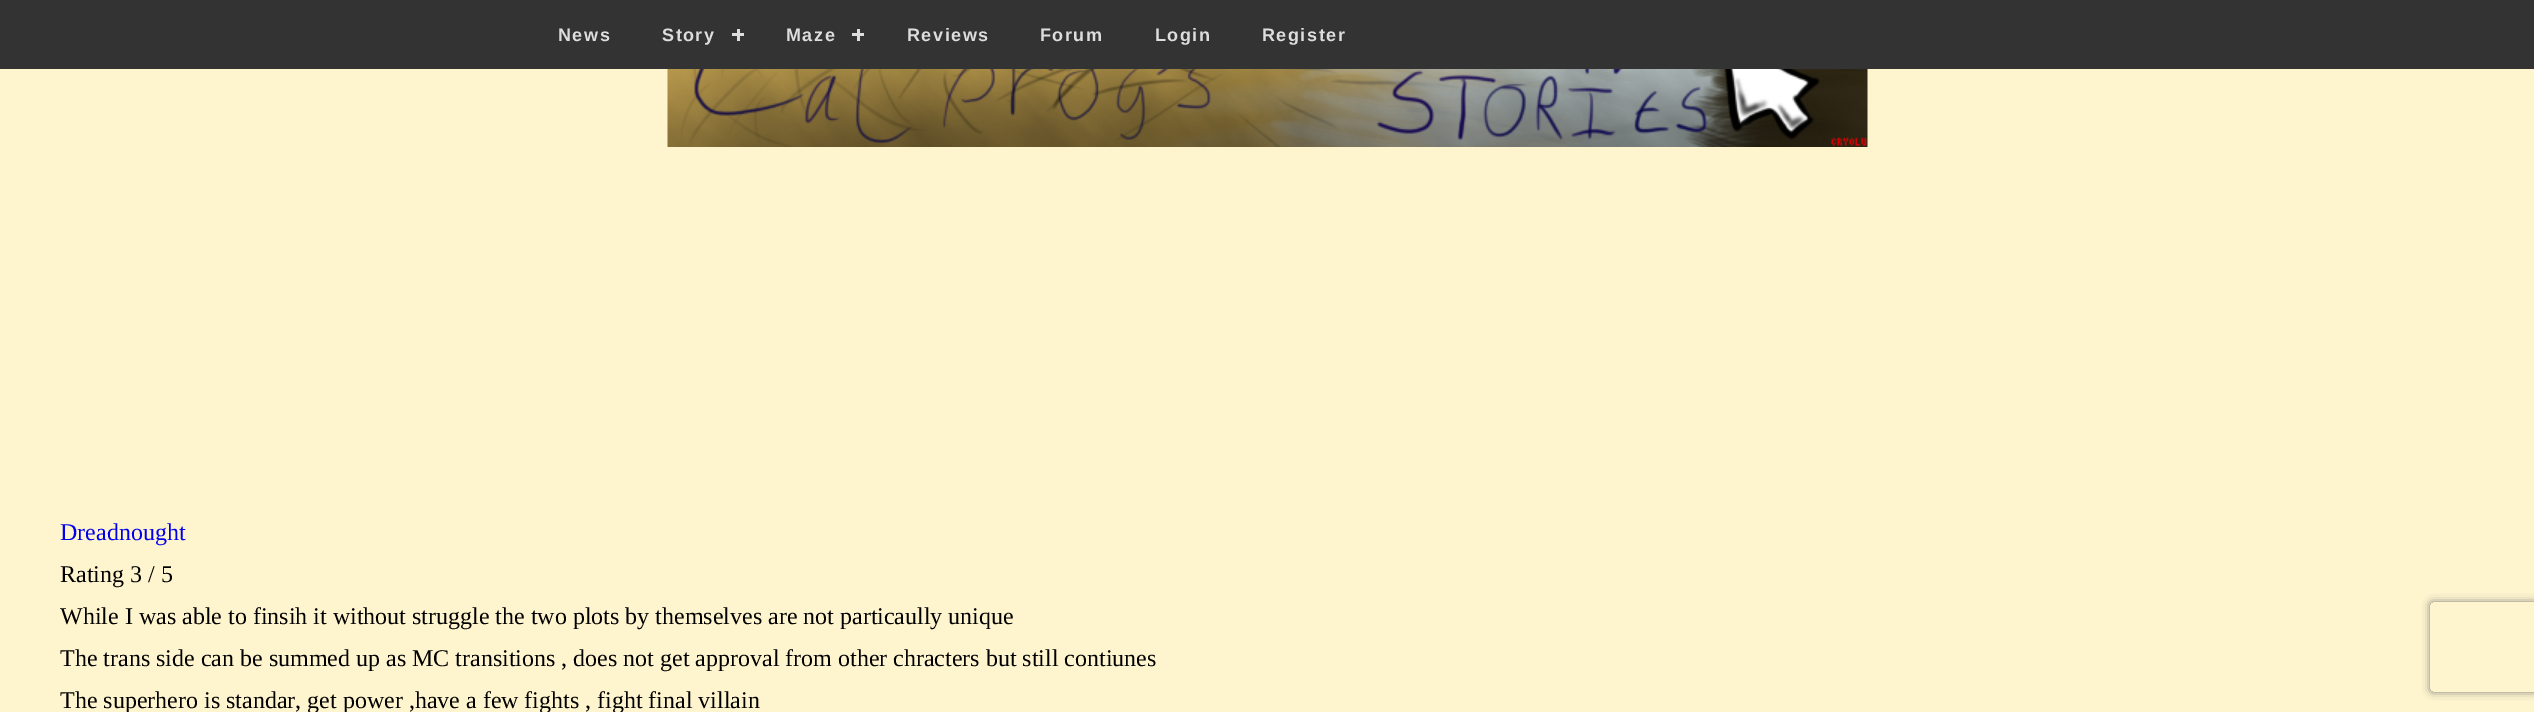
%!PS
<< /PageSize [2534 712] /PageUsesTransparency true >> setpagedevice
/rgb { 3 { 255 div 3 1 roll } repeat setrgbcolor } def
/font { [ exch dup neg 0 0 3 -1 roll 0 0 ] selectfont } def
/alpha { dup .setfillconstantalpha .setstrokeconstantalpha } def
/roundrect { 5 dict begin { /r /h /w /y /x } { exch def } forall
  x r add y moveto x w add y 2 copy h add r arct x w add y h add x 1 index r arct
  x y h add x y r arct x y 2 copy exch w add exch r arct closepath end } def
/shadow { 12 dict begin { /a /b /q /h /w /y /x } { exch def } forall gsave /was 0 def
  9 -2 -9 { dup b mul 4 div /e exch def 1 sub .425 mul 2.718 exch exp 1 add a .99 .min exch div /now exch def
    1 1 now sub 1 was sub div sub alpha /was now def
    w h .min e 2 mul add 0 gt { x e sub y e sub w e 2 mul add h e 2 mul add
      q e add b .6 mul add w h .min 2 div e add .min 0 .max roundrect fill } if } for grestore end } def
/picture { 5 dict begin { /h /w /y /x /name } { exch def } forall
  gsave x y translate w h scale
  w h 8 [w 0 0 h 0 0] name (r) file false 3 colorimage grestore end } def
0 .pushpdf14devicefilter
0 712 translate 1 -1 scale
4 setmiterlimit
254 244 205 rgb
0 0 2534 712 rectfill
[
  [0 0 2534 69 51 51 51]
  [737 29 3 12 221 221 221]
  [732 33 12 3 221 221 221]
  [857 29 3 12 221 221 221]
  [852 33 12 3 221 221 221]
] { aload pop rgb rectfill } forall
(img/1.rgb) 667 69 1201 78 picture
gsave
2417 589 moveto 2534 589 lineto 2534 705 lineto 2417 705 lineto closepath 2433 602 moveto 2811 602 lineto 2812.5 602 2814 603.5 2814 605 curveto 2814 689 lineto 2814 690.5 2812.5 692 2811 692 curveto 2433 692 lineto 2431.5 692 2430 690.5 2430 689 curveto 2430 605 lineto 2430 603.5 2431.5 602 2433 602 curveto closepath eoclip newpath
128 128 128 rgb
2430 602 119 90 3 4 1 shadow
grestore
/LiberationSans-Bold 18 font
558 41 moveto 1.5 0 (News) ashow
662 41 moveto 1.5 0 (Story) ashow
786 41 moveto 1.5 0 (Maze) ashow
907 41 moveto 1.5 0 (Reviews) ashow
1040 41 moveto 1.5 0 (Forum) ashow
1155 41 moveto 1.5 0 (Login) ashow
1262 41 moveto 1.5 0 (Register) ashow
/LiberationSerif-Regular 24 font
0 0 238 rgb
60 540 moveto (Dreadnought) show
0 0 0 rgb
[
  [(Rating 3 / 5) 60 582]
  [(While I was able to finsih it without struggle the two plots by themselves are not particaully unique) 60 624]
  [(The trans side can be summed up as MC transitions , does not get approval from other chracters but still contiunes) 60 666]
  [(The superhero is standar, get power ,have a few fights , fight final villain) 60 708]
] { aload pop moveto show } forall
.poppdf14devicefilter showpage
